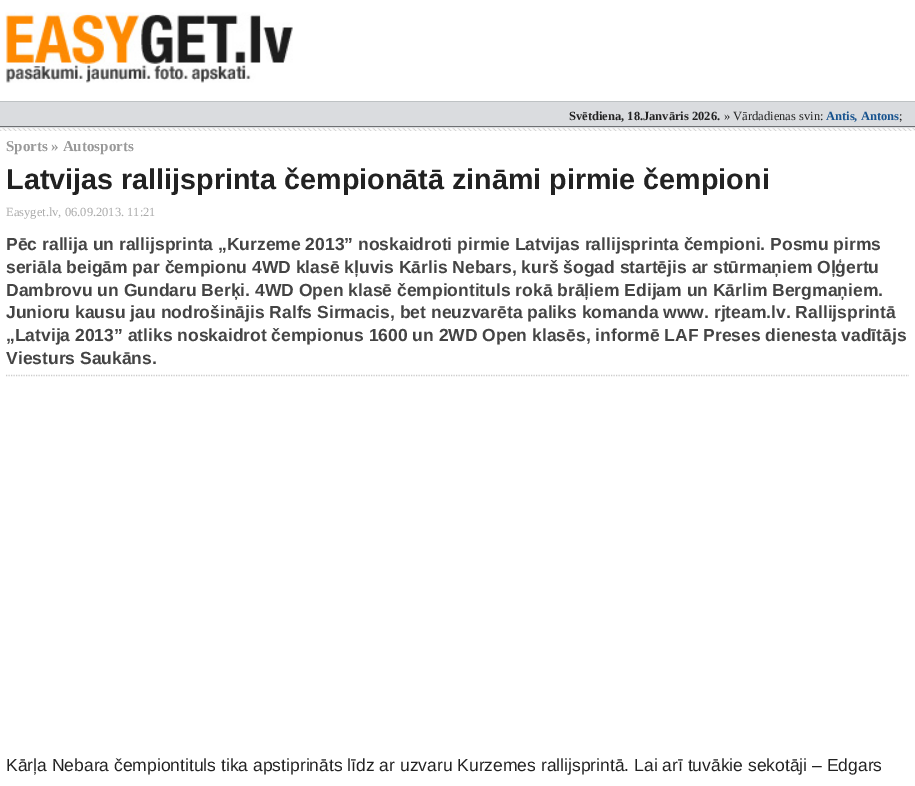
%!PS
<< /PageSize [915 786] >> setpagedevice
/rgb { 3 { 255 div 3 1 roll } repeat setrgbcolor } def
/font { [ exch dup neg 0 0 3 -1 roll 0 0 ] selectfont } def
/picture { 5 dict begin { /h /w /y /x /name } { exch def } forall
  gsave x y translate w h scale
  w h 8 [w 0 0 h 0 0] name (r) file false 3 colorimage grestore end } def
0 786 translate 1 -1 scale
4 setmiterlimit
255 255 255 rgb
0 0 915 786 rectfill
(img/1.rgb) 0 128 915 3 picture
(img/2.rgb) 5 12 288 71 picture
[
  [0 102 915 26 218 220 223]
  [0 101 915 1 190 194 196]
  [0 126 915 1 109 111 114]
] { aload pop rgb rectfill } forall
204 204 204 rgb
1.2 setlinewidth
[1.25 1.25] 0 setdash
6 375.5 moveto 909 375.5 lineto stroke
/LiberationSerif-Bold 12.5 font
34 34 34 rgb
569 120 moveto (Svētdiena, 18.Janvāris 2026.) show
/LiberationSerif-Regular 12.5 font
724 120 moveto (» Vārdadienas svin:) show
/LiberationSerif-Bold 12.5 font
22 82 142 rgb
826 120 moveto (Antis, Antons) show
/LiberationSerif-Regular 12.5 font
34 34 34 rgb
899 120 moveto (;) show
/LiberationSerif-Bold 15 font
153 153 153 rgb
6 151 moveto (Sports » Autosports) show
/LiberationSans-Bold 28.75 font
34 34 34 rgb
6 189 moveto (Latvijas rallijsprinta čempionātā zināmi pirmie čempioni) show
/LiberationSerif-Regular 12.5 font
170 170 170 rgb
6 216 moveto (Easyget.lv, 06.09.2013. 11:21) show
/LiberationSans-Bold 17.5 font
68 68 68 rgb
[
  [(Pēc rallija un rallijsprinta „Kurzeme 2013” noskaidroti pirmie Latvijas rallijsprinta čempioni. Posmu pirms) 6 250]
  [(seriāla beigām par čempionu 4WD klasē kļuvis Kārlis Nebars, kurš šogad startējis ar stūrmaņiem Oļģertu) 6 273]
  [(Dambrovu un Gundaru Berķi. 4WD Open klasē čempiontituls rokā brāļiem Edijam un Kārlim Bergmaņiem.) 6 296]
  [(Junioru kausu jau nodrošinājis Ralfs Sirmacis, bet neuzvarēta paliks komanda www. rjteam.lv. Rallijsprintā) 6 318]
  [(„Latvija 2013” atliks noskaidrot čempionus 1600 un 2WD Open klasēs, informē LAF Preses dienesta vadītājs) 6 341]
  [(Viesturs Saukāns.) 6 364]
] { aload pop moveto show } forall
/LiberationSans-Regular 17.5 font
34 34 34 rgb
6 771 moveto (Kārļa Nebara čempiontituls tika apstiprināts līdz ar uzvaru Kurzemes rallijsprintā. Lai arī tuvākie sekotāji – Edgars) show
showpage
